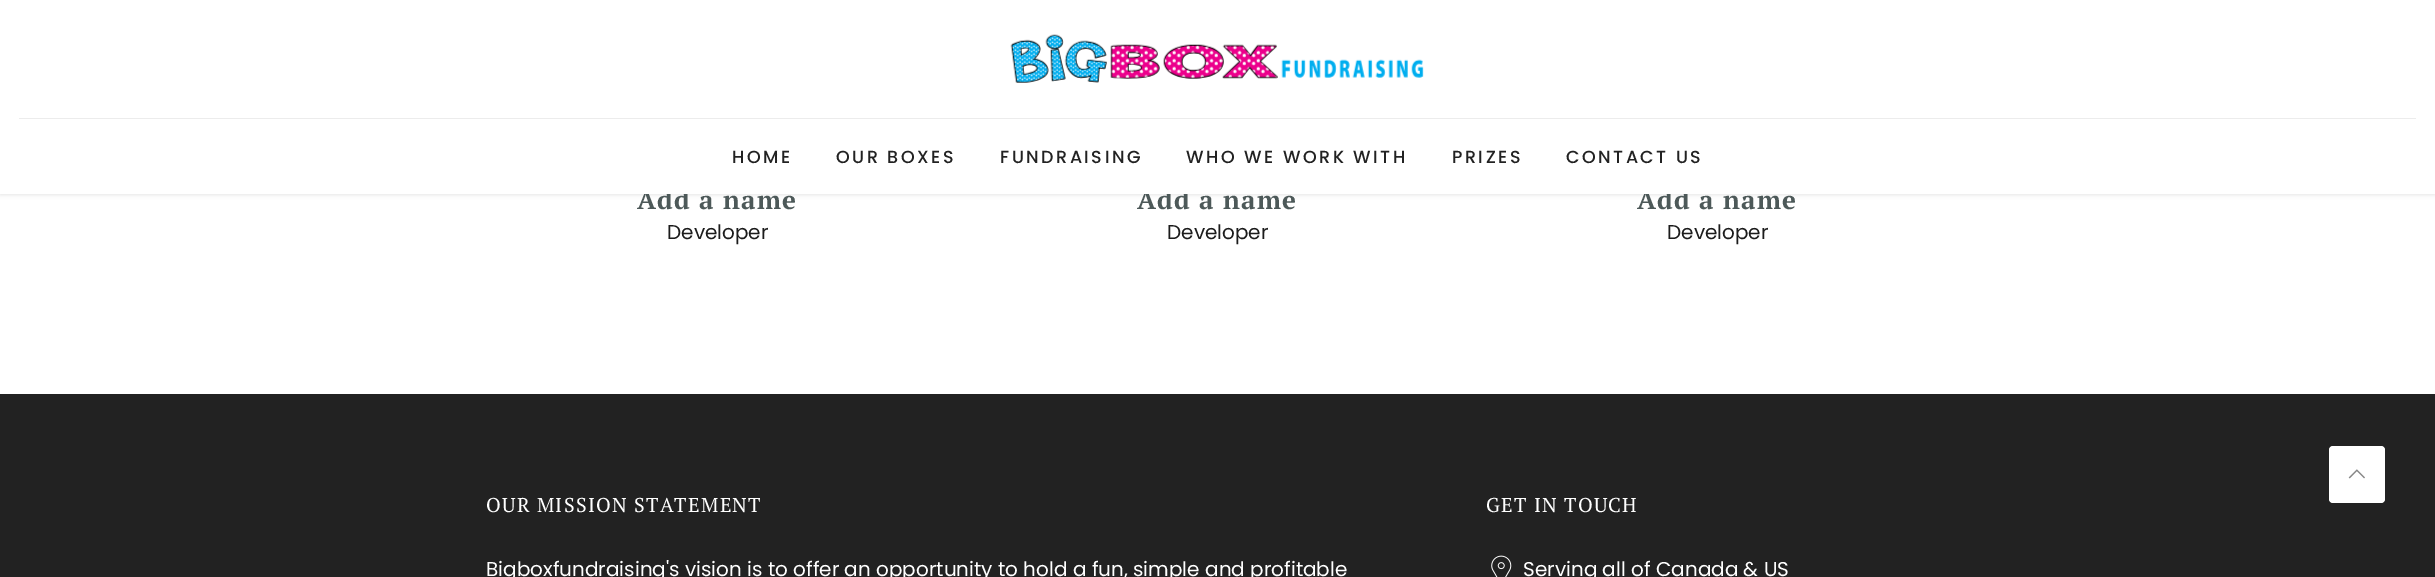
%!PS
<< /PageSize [2435 577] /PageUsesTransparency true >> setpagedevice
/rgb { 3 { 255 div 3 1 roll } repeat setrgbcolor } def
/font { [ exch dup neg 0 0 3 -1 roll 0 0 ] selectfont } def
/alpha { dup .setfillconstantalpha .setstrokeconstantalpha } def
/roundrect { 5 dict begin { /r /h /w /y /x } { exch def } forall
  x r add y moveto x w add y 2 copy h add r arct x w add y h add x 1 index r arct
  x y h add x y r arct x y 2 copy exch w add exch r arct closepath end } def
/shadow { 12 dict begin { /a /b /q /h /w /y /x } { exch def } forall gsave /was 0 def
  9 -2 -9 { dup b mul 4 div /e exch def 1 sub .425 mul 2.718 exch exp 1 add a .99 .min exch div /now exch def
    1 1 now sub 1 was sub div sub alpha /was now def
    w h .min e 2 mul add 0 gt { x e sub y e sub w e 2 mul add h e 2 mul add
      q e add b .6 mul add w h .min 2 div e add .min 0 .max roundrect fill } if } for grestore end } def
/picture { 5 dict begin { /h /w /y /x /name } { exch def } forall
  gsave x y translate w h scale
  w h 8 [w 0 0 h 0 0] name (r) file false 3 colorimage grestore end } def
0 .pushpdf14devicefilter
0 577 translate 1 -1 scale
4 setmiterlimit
255 255 255 rgb
0 0 2435 577 rectfill
0 0 0 rgb
0 1 2435 194 0 2 0.1 shadow
34 34 34 rgb
0 394 2435 183 rectfill
(img/2.rgb) 1491 555 21 22 picture
255 255 255 rgb
2329 446 56 57 4 roundrect fill
(img/3.rgb) 2348 469 17 10 picture
/PTSerif-Bold 26 font
77 89 89 rgb
637 209 moveto 1.25 0 (Add a name) ashow
/Poppins-Regular 20 font
28 28 28 rgb
667 239 moveto (Developer) show
/PTSerif-Bold 26 font
77 89 89 rgb
1137 209 moveto 1.25 0 (Add a name) ashow
/Poppins-Regular 20 font
28 28 28 rgb
1167 239 moveto (Developer) show
/PTSerif-Bold 26 font
77 89 89 rgb
1637 209 moveto 1.25 0 (Add a name) ashow
255 255 255 rgb
0 0 2435 194 rectfill
/Poppins-Medium 17.5 font
34 34 34 rgb
1566 163 moveto 2.5 0 (CONTACT US) ashow
1452 163 moveto 2.5 0 (PRIZES) ashow
1186 163 moveto 2.5 0 (WHO WE WORK WITH) ashow
1000 163 moveto 2.5 0 (FUNDRAISING) ashow
836 163 moveto 2.5 0 (OUR BOXES) ashow
732 163 moveto 2.5 0 (HOME) ashow
(img/1.rgb) 1010 34 414 49 picture
236 236 236 rgb
19 118 2397 1 rectfill
/Poppins-Regular 20 font
28 28 28 rgb
1667 239 moveto (Developer) show
/PTSerif-Regular 20 font
255 255 255 rgb
486 512 moveto 1.25 0 (OUR MISSION STATEMENT) ashow
/Poppins-Regular 20 font
486 576 moveto (Bigboxfundraising's vision is to offer an opportunity to hold a fun, simple and profitable) show
/PTSerif-Regular 20 font
1486 512 moveto 1.25 0 (GET IN TOUCH) ashow
/Poppins-Regular 20 font
1523 576 moveto (Serving all of Canada & US) show
.poppdf14devicefilter showpage
